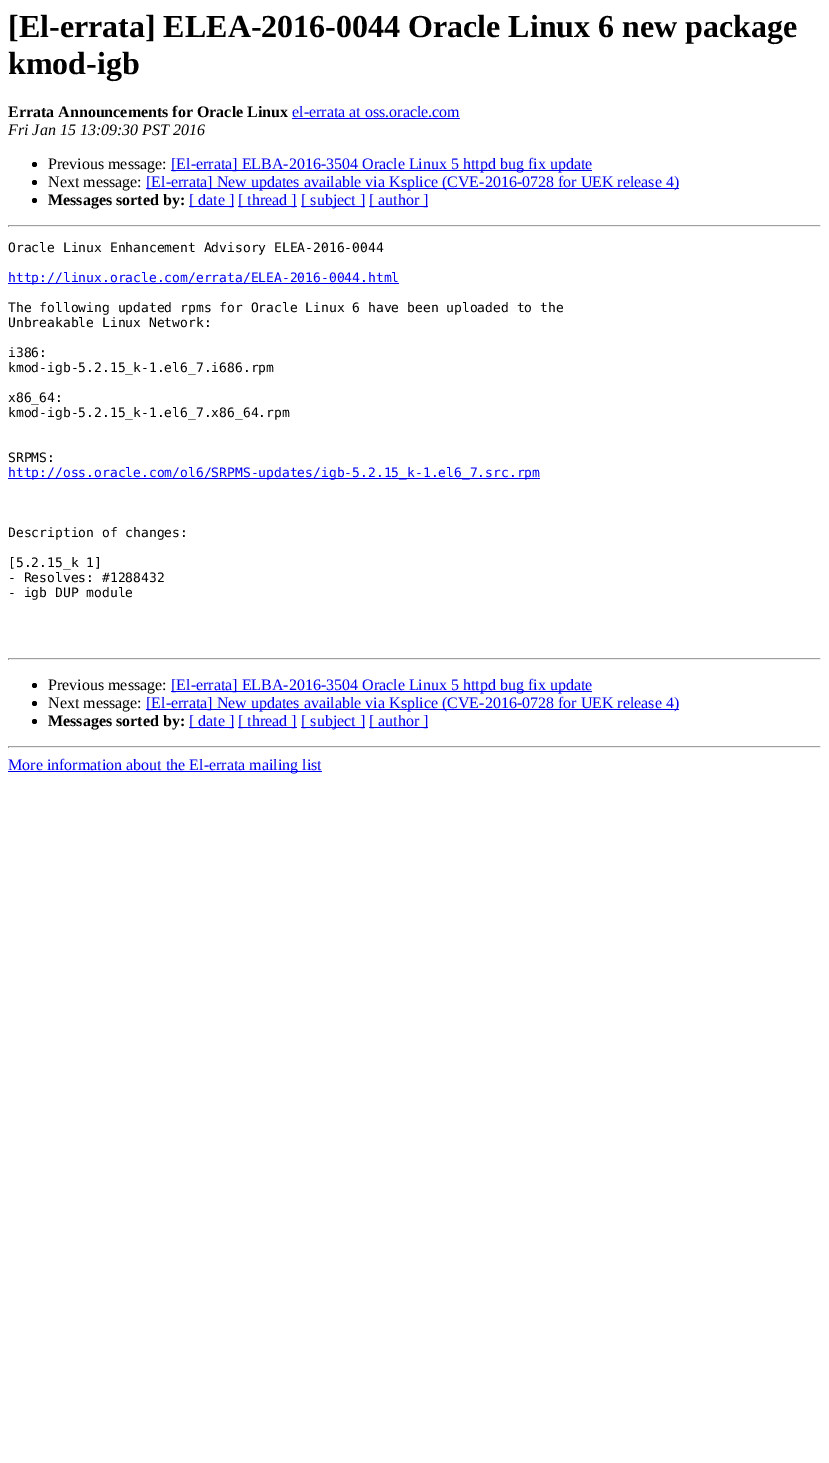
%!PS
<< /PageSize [829 1463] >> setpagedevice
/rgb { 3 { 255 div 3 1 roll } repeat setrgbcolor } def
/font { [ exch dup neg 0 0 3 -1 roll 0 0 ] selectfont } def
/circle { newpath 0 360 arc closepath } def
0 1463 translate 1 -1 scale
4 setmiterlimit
255 255 255 rgb
0 0 829 1463 rectfill
0 0 238 rgb
292 118 168 1 rectfill
0 0 0 rgb
34.5 164.5 2.5 circle fill
0 0 238 rgb
171 170 421 1 rectfill
0 0 0 rgb
34.5 182.5 2.5 circle fill
0 0 238 rgb
146 188 533 1 rectfill
0 0 0 rgb
34.5 200.5 2.5 circle fill
[
  [189 206 45 1 0 0 238]
  [238 206 59 1 0 0 238]
  [301 206 64 1 0 0 238]
  [369 206 59 1 0 0 238]
  [8 225 813 1 159 159 159]
  [820 225 1 2 238 238 238]
  [8 226 813 1 238 238 238]
  [8 225 1 2 159 159 159]
  [8 283 391 1 0 0 238]
  [8 478 532 1 0 0 238]
  [8 658 813 1 159 159 159]
  [820 658 1 2 238 238 238]
  [8 659 813 1 238 238 238]
  [8 658 1 2 159 159 159]
] { aload pop rgb rectfill } forall
0 0 0 rgb
34.5 685.5 2.5 circle fill
0 0 238 rgb
171 691 421 1 rectfill
0 0 0 rgb
34.5 703.5 2.5 circle fill
0 0 238 rgb
146 709 533 1 rectfill
0 0 0 rgb
34.5 721.5 2.5 circle fill
[
  [189 727 45 1 0 0 238]
  [238 727 59 1 0 0 238]
  [301 727 64 1 0 0 238]
  [369 727 59 1 0 0 238]
  [8 746 813 1 159 159 159]
  [820 746 1 2 238 238 238]
  [8 747 813 1 238 238 238]
  [8 746 1 2 159 159 159]
  [8 771 314 1 0 0 238]
] { aload pop rgb rectfill } forall
/LiberationSerif-Bold 32 font
0 0 0 rgb
8 37 moveto ([El-errata] ELEA-2016-0044 Oracle Linux 6 new package) show
8 74 moveto (kmod-igb) show
/LiberationSerif-Bold 16 font
8 117 moveto (Errata Announcements for Oracle Linux) show
/LiberationSerif-Regular 16 font
0 0 238 rgb
292 117 moveto (el-errata at oss.oracle.com) show
/LiberationSerif-Italic 16 font
0 0 0 rgb
8 135 moveto (Fri Jan 15 13:09:30 PST 2016) show
/LiberationSerif-Regular 16 font
48 169 moveto (Previous message:) show
0 0 238 rgb
171 169 moveto ([El-errata] ELBA-2016-3504 Oracle Linux 5 httpd bug fix update) show
0 0 0 rgb
48 187 moveto (Next message:) show
0 0 238 rgb
146 187 moveto ([El-errata] New updates available via Ksplice \(CVE-2016-0728 for UEK release 4\)) show
/LiberationSerif-Bold 16 font
0 0 0 rgb
48 205 moveto (Messages sorted by:) show
/LiberationSerif-Regular 16 font
0 0 238 rgb
[
  [([ date ]) 189 205]
  [([ thread ]) 238 205]
  [([ subject ]) 301 205]
  [([ author ]) 369 205]
] { aload pop moveto show } forall
/DejaVuSansMono-Regular 13 font
0 0 0 rgb
8 252 moveto (Oracle Linux Enhancement Advisory ELEA-2016-0044) show
0 0 238 rgb
8 282 moveto (http://linux.oracle.com/errata/ELEA-2016-0044.html) show
0 0 0 rgb
[
  [(The following updated rpms for Oracle Linux 6 have been uploaded to the) 8 312]
  [(Unbreakable Linux Network:) 8 327]
  [(i386:) 8 357]
  [(kmod-igb-5.2.15_k-1.el6_7.i686.rpm) 8 372]
  [(x86_64:) 8 402]
  [(kmod-igb-5.2.15_k-1.el6_7.x86_64.rpm) 8 417]
  [(SRPMS:) 8 462]
] { aload pop moveto show } forall
0 0 238 rgb
8 477 moveto (http://oss.oracle.com/ol6/SRPMS-updates/igb-5.2.15_k-1.el6_7.src.rpm) show
0 0 0 rgb
[
  [(Description of changes:) 8 537]
  [([5.2.15_k 1]) 8 567]
  [(- Resolves: #1288432) 8 582]
  [(- igb DUP module) 8 597]
] { aload pop moveto show } forall
/LiberationSerif-Regular 16 font
48 690 moveto (Previous message:) show
0 0 238 rgb
171 690 moveto ([El-errata] ELBA-2016-3504 Oracle Linux 5 httpd bug fix update) show
0 0 0 rgb
48 708 moveto (Next message:) show
0 0 238 rgb
146 708 moveto ([El-errata] New updates available via Ksplice \(CVE-2016-0728 for UEK release 4\)) show
/LiberationSerif-Bold 16 font
0 0 0 rgb
48 726 moveto (Messages sorted by:) show
/LiberationSerif-Regular 16 font
0 0 238 rgb
[
  [([ date ]) 189 726]
  [([ thread ]) 238 726]
  [([ subject ]) 301 726]
  [([ author ]) 369 726]
  [(More information about the El-errata mailing list) 8 770]
] { aload pop moveto show } forall
showpage
